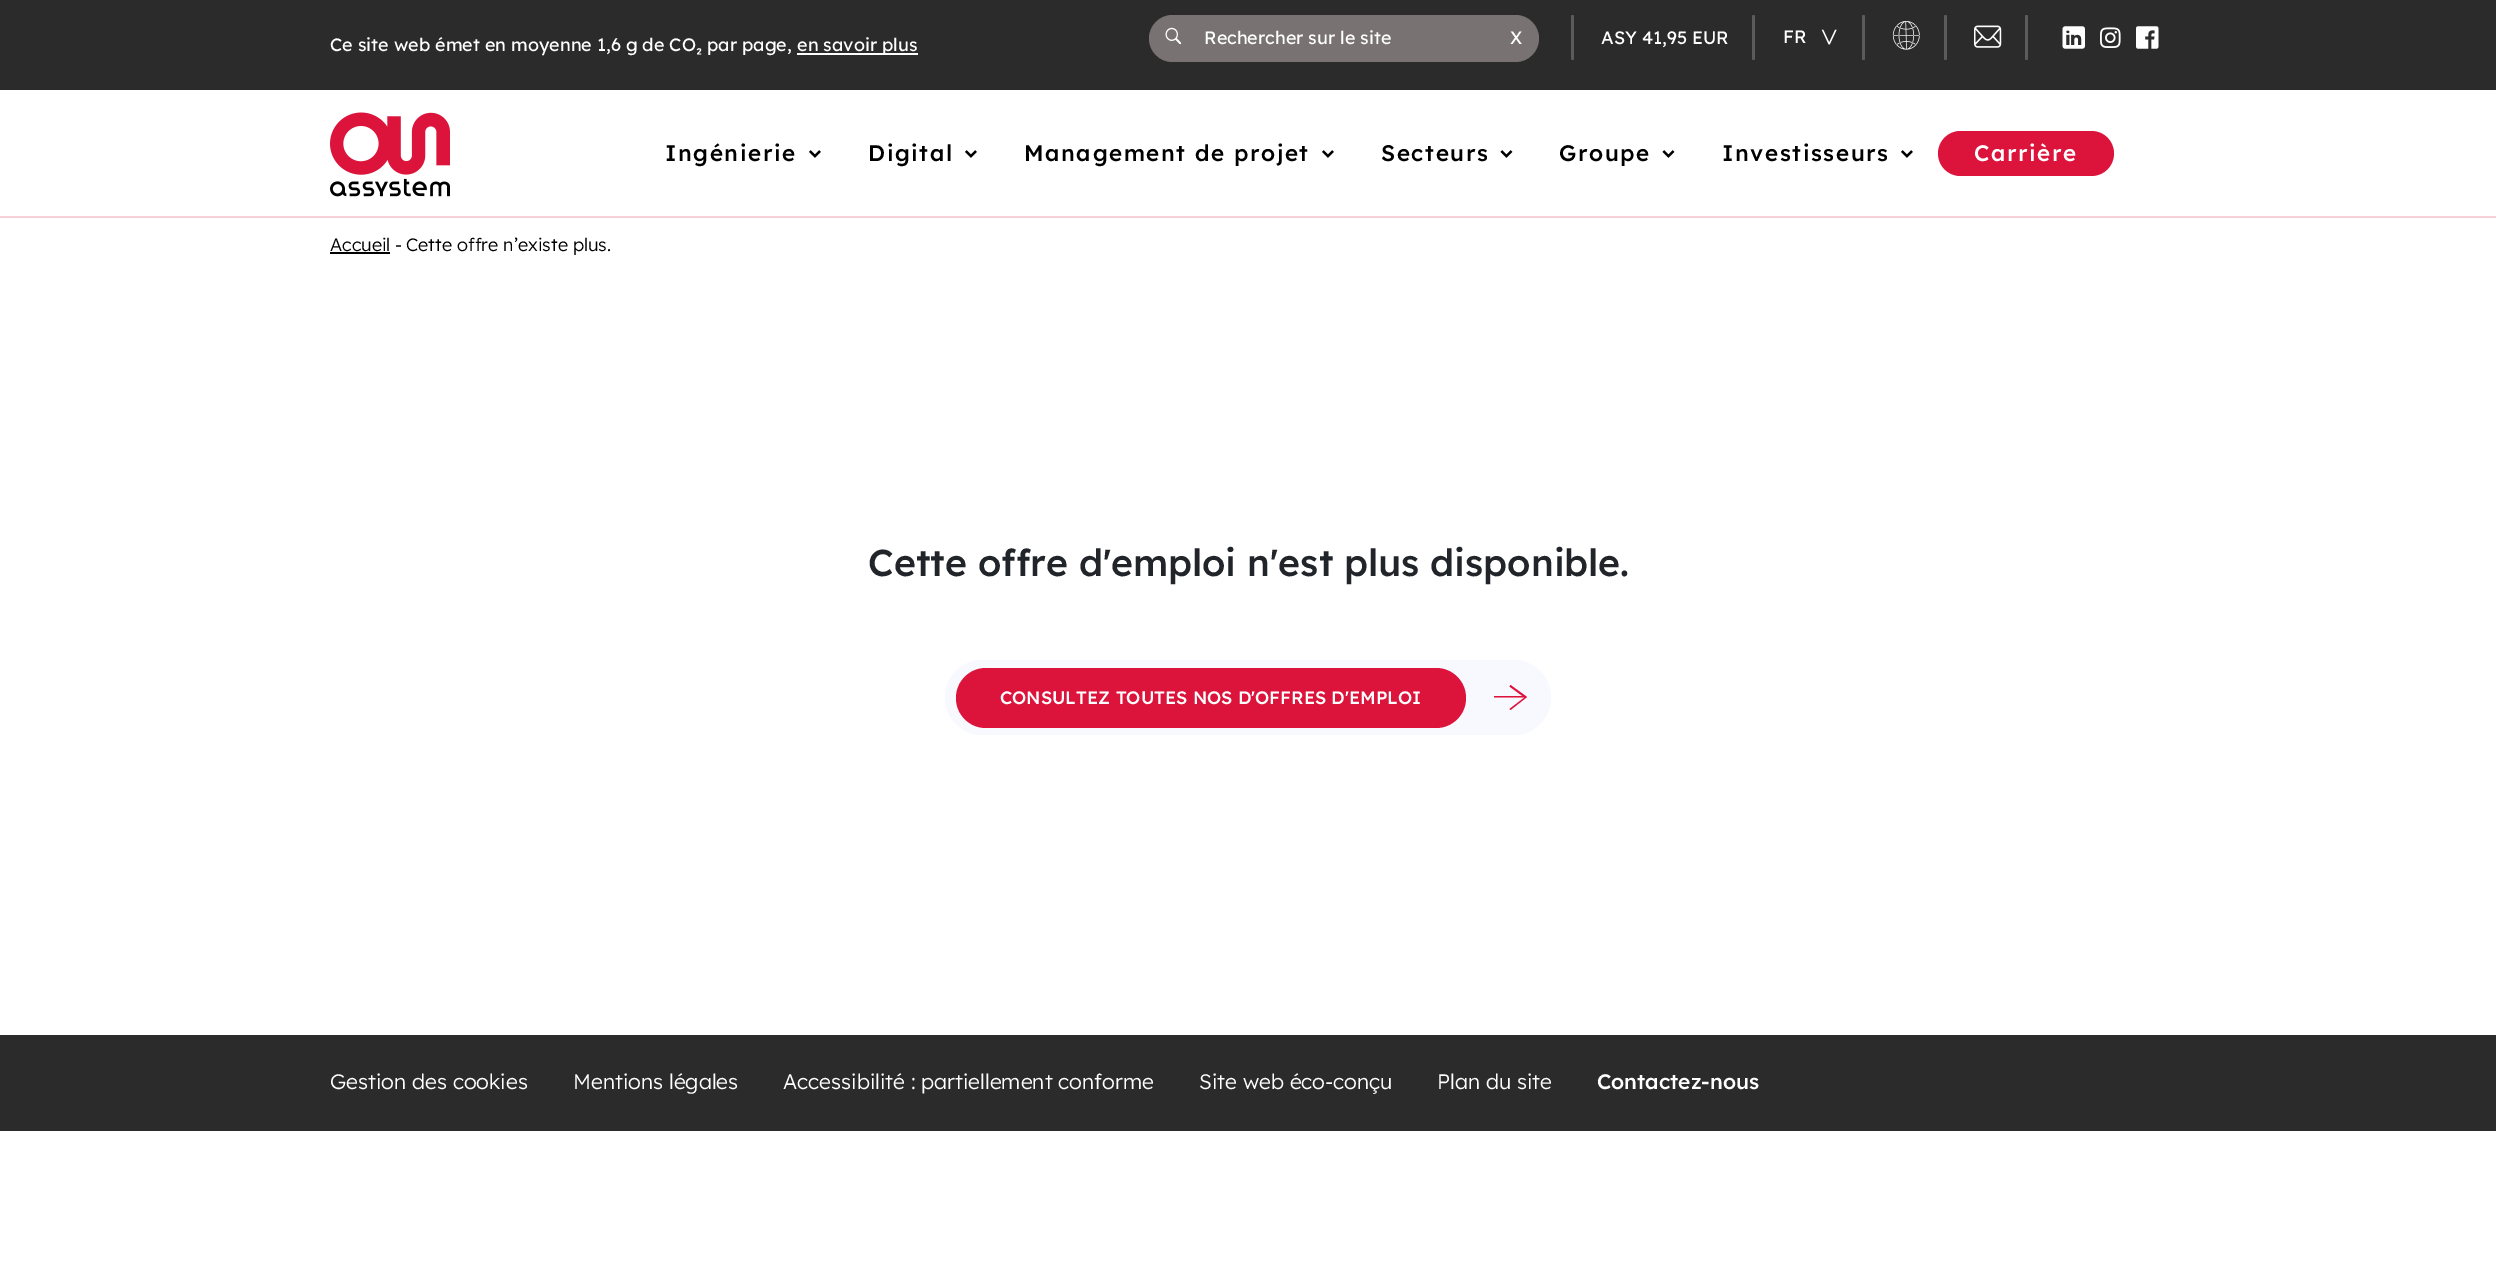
%!PS
<< /PageSize [2496 1280] >> setpagedevice
/rgb { 3 { 255 div 3 1 roll } repeat setrgbcolor } def
/font { [ exch dup neg 0 0 3 -1 roll 0 0 ] selectfont } def
/roundrect { 5 dict begin { /r /h /w /y /x } { exch def } forall
  x r add y moveto x w add y 2 copy h add r arct x w add y h add x 1 index r arct
  x y h add x y r arct x y 2 copy exch w add exch r arct closepath end } def
/picture { 5 dict begin { /h /w /y /x /name } { exch def } forall
  gsave x y translate w h scale
  w h 8 [w 0 0 h 0 0] name (r) file false 3 colorimage grestore end } def
0 1280 translate 1 -1 scale
4 setmiterlimit
255 255 255 rgb
0 0 2496 1280 rectfill
43 43 43 rgb
0 0 2496 90 rectfill
255 255 255 rgb
797 53 121 2 rectfill
121 114 114 rgb
1149 15 390 47 23.5 roundrect fill
(img/1.rgb) 1165 27 17 18 picture
91 91 91 rgb
1571 15 3 45 1.5 roundrect fill
1752 15 3 45 1.5 roundrect fill
(img/2.rgb) 1821 29 16 16 picture
1862 15 3 45 1.5 roundrect fill
(img/3.rgb) 1892 21 28 29 picture
1944 15 3 45 1.5 roundrect fill
(img/4.rgb) 1974 25 28 23 picture
2025 15 3 45 1.5 roundrect fill
(img/5.rgb) 2062 26 23 23 picture
(img/6.rgb) 2100 27 21 21 picture
(img/7.rgb) 2136 26 23 23 picture
248 208 216 rgb
0 216 2496 2 rectfill
(img/8.rgb) 330 112 120 85 picture
(img/9.rgb) 809 150 12 8 picture
(img/9.rgb) 965 150 12 8 picture
(img/9.rgb) 1322 150 12 8 picture
(img/10.rgb) 1500 150 13 8 picture
(img/10.rgb) 1662 150 13 8 picture
(img/9.rgb) 1901 150 12 8 picture
220 20 60 rgb
1938 131 176 45 22.5 roundrect fill
0 0 0 rgb
330 252 60 2 rectfill
248 248 255 rgb
945 660 606 75 37.5 roundrect fill
220 20 60 rgb
956 668 510 60 30 roundrect fill
1509.5 686.5 moveto 1510.5 685 lineto 1527 697 lineto 1510.5 710 lineto 1509.5 709 lineto 1524.5 697.5 lineto closepath 1524 696 moveto 1524 697.5 lineto 1494 697.5 lineto 1494 696 lineto closepath fill
44 43 43 rgb
0 1035 2496 96 rectfill
/Lexend-Regular 18 font
255 255 255 rgb
[
  [(Ce site web émet en moyenne 1,6 g de CO₂ par page,) 330 51]
  [(en savoir plus) 797 51]
  [(Rechercher sur le site) 1204 44]
  [(X) 1510 44]
  [(ASY 41,95 EUR) 1601 44]
  [(FR) 1783 43]
] { aload pop moveto show } forall
/Lexend-Medium 22.5 font
0 0 0 rgb
665 161 moveto 1.6 0 (Ingénierie) ashow
868 161 moveto 1.6 0 (Digital) ashow
1024 161 moveto 1.6 0 (Management de projet) ashow
1381 161 moveto 1.6 0 (Secteurs) ashow
1559 161 moveto 1.6 0 (Groupe) ashow
1722 161 moveto 1.6 0 (Investisseurs) ashow
255 255 255 rgb
1974 161 moveto 1.6 0 (Carrière) ashow
/Lexend-Light 18 font
0 0 0 rgb
[
  [(Accueil) 330 251]
  [(-) 395 251]
  [(Cette offre n’existe plus.) 406 251]
] { aload pop moveto show } forall
/Lexend-Medium 37.5 font
33 37 41 rgb
868 576 moveto -0.05 0 (Cette offre d'emploi n'est plus disponible.) ashow
/Lexend-Medium 18 font
255 255 255 rgb
1000 704 moveto -0.05 0 (CONSULTEZ TOUTES NOS D'OFFRES D'EMPLOI) ashow
/Lexend-Light 21 font
[
  [(Gestion des cookies) 330 1089]
  [(Mentions légales) 573 1089]
  [(Accessibilité : partiellement conforme) 783 1089]
  [(Site web éco-conçu) 1199 1089]
  [(Plan du site) 1437 1089]
] { aload pop moveto show } forall
/Lexend-Medium 21 font
1597 1089 moveto (Contactez-nous) show
showpage
